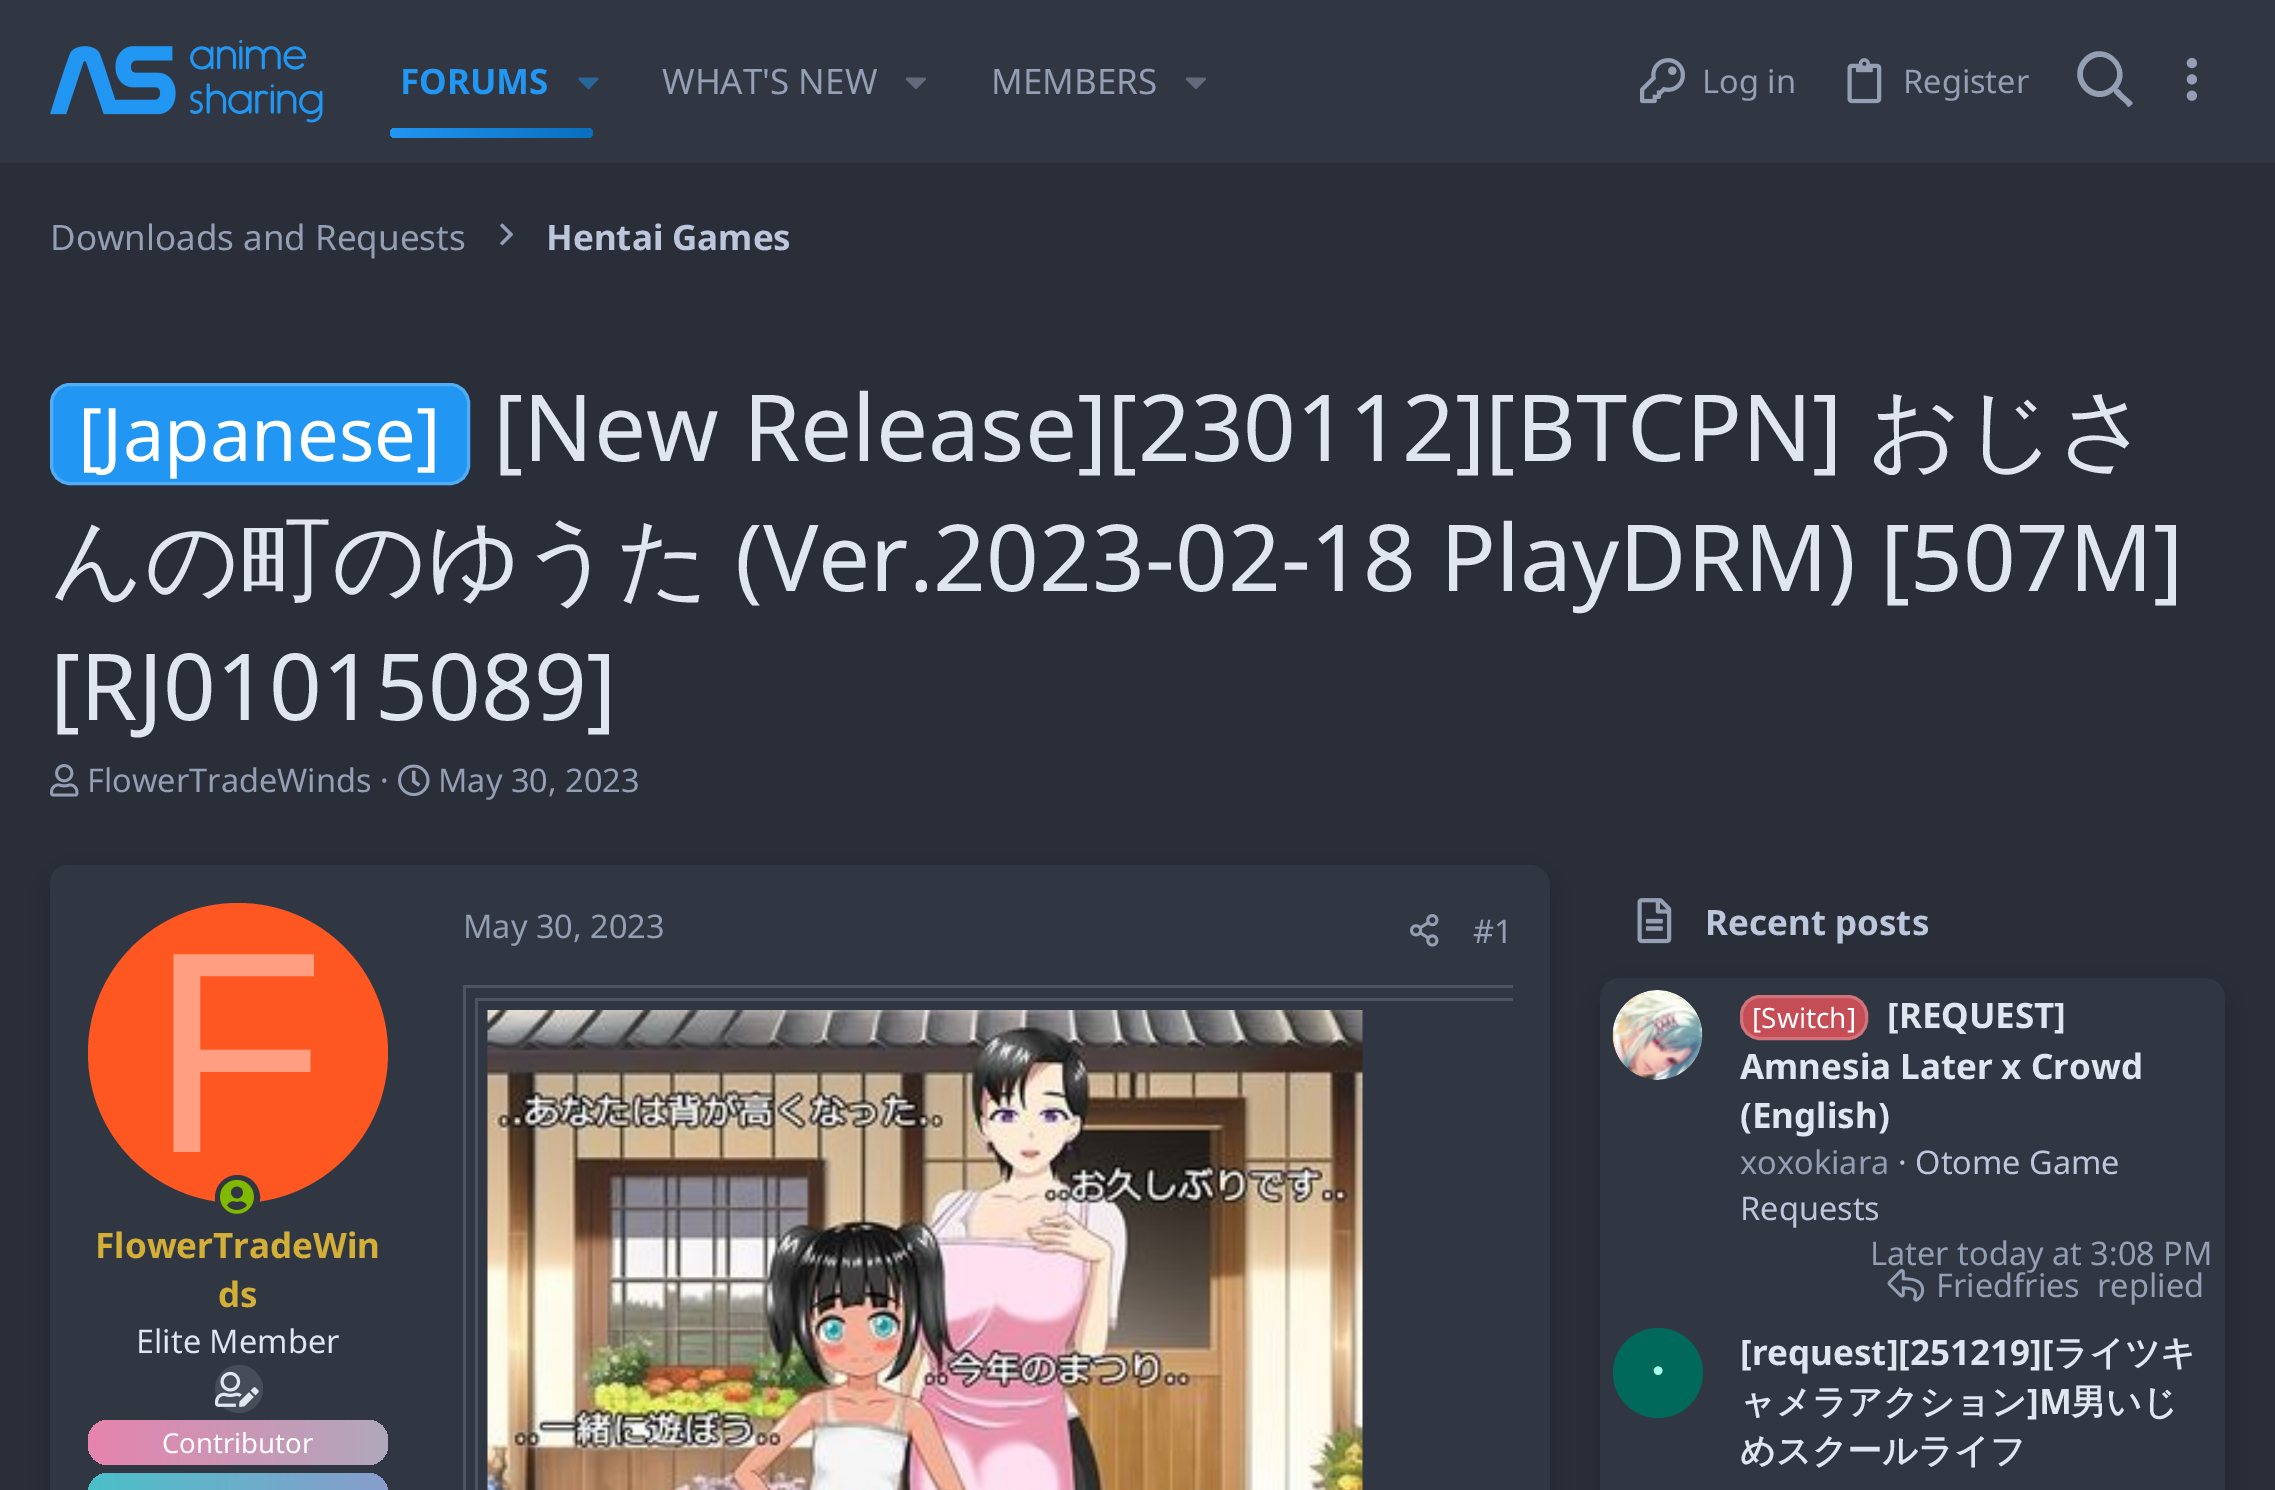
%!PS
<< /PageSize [2275 1490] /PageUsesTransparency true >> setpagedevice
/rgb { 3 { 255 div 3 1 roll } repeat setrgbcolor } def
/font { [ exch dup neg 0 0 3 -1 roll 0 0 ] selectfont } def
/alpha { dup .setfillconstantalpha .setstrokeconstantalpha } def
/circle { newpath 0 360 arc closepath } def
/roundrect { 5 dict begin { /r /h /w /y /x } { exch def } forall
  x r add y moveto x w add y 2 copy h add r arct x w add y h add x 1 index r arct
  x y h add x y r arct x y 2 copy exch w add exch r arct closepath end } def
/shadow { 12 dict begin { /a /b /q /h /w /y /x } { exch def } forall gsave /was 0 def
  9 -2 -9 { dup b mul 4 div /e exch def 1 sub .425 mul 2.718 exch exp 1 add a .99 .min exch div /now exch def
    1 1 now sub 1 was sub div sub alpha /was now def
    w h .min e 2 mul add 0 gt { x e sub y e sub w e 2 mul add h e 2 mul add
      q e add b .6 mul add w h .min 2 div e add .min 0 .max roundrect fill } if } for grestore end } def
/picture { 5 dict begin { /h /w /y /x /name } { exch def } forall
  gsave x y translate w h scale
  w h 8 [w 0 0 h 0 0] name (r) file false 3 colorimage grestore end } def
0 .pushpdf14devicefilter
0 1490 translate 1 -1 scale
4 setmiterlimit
41 46 57 rgb
0 0 2275 1490 rectfill
49 55 66 rgb
0 0 2275 163 rectfill
(img/1.rgb) 50 40 273 83 picture
(img/2.rgb) 578 77 21 12 picture
gsave 390 128 203 10 5 roundrect clip newpath
<< /ShadingType 2 /ColorSpace /DeviceRGB /Coords [390 132 593 133] /Extend [true true] /Function << /FunctionType 2 /Domain [0 1] /C0 [0.129 0.588 0.953] /C1 [0.039 0.431 0.741] /N 1 >> >> shfill grestore
(img/3.rgb) 905 77 21 12 picture
(img/3.rgb) 1185 77 21 12 picture
(img/4.rgb) 1640 58 45 46 picture
(img/5.rgb) 1847 58 35 46 picture
149 159 180 rgb
2132 102 moveto 2133 103 2132 105 2131 105 curveto 2128 108 2128 107 2126 104 curveto 2117 96 lineto 2115 93 2114 94 2114 91 curveto 2093 110 2064 79 2084 58 curveto 2104 38 2135 67 2117 89 curveto 2120 89 2120 91 2123 94 curveto closepath 2088 86 moveto 2104 102 2128 78 2112 62 curveto 2096 46 2072 70 2088 86 curveto closepath fill
(img/6.rgb) 2186 57 11 44 picture
(img/7.rgb) 500 223 14 23 picture
33 150 243 rgb
51.5 384.5 417 99 18.5 roundrect gsave fill grestore
81 173 246 rgb
3 setlinewidth
stroke
(img/8.rgb) 50 764 29 33 picture
(img/9.rgb) 398 764 32 33 picture
0 0 0 rgb
50 875 1500 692 20 19 0.2 shadow
(img/14.rgb) 1637 898 35 46 picture
1600 988 625 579 20 19 0.2 shadow
49 55 66 rgb
50 865 1500 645 20 roundrect fill
(img/10.rgb) 1410 914 29 33 picture
[
  [463 985 1050 3 77 84 96]
  [463 985 3 505 77 84 96]
  [475 998 1038 3 77 84 96]
  [475 998 3 492 77 84 96]
] { aload pop rgb rectfill } forall
(img/11.rgb) 487 1010 876 480 picture
49 55 66 rgb
68 865 moveto 425 865 lineto 425 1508 lineto 68 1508 lineto 58 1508 50 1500 50 1490 curveto 50 883 lineto 50 873 58 865 68 865 curveto closepath fill
255 87 34 rgb
238 1053 150 circle fill
49 55 66 rgb
237.5 1197.5 20 circle gsave fill grestore
5 setlinewidth
stroke
(img/12.rgb) 220 1179 34 35 picture
70 76 88 rgb
239 1389 24 circle fill
(img/13.rgb) 215 1371 44 36 picture
gsave 88 1420 300 45 20 roundrect clip newpath
<< /ShadingType 2 /ColorSpace /DeviceRGB /Coords [88 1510 1288 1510] /Extend [true true] /Function << /FunctionType 3 /Domain [0 1] /Functions [<< /FunctionType 2 /Domain [0 1] /C0 [0.902 0.518 0.682] /C1 [0.475 0.796 0.792] /N 1 >> << /FunctionType 2 /Domain [0 1] /C0 [0.475 0.796 0.792] /C1 [0.467 0.631 0.827] /N 1 >>] /Bounds [0.5] /Encode [0 1 0 1] >> >> shfill grestore
gsave 88 1473 300 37 20 roundrect clip newpath
<< /ShadingType 2 /ColorSpace /DeviceRGB /Coords [88 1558 1288 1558] /Extend [true true] /Function << /FunctionType 3 /Domain [0 1] /Functions [<< /FunctionType 2 /Domain [0 1] /C0 [0.294 0.753 0.784] /C1 [0.78 0.475 0.816] /N 1 >> << /FunctionType 2 /Domain [0 1] /C0 [0.78 0.475 0.816] /C1 [0.996 0.675 0.369] /N 1 >>] /Bounds [0.5] /Encode [0 1 0 1] >> >> shfill grestore
49 55 66 rgb
1600 978 625 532 20 roundrect fill
(img/15.rgb) 1612 990 91 90 picture
196 77 86 rgb
1741.5 996.5 125 42 18.5 roundrect gsave fill grestore
209 115 122 rgb
3 setlinewidth
stroke
0 105 92 rgb
1658 1373 45 circle fill
/NotoSans-Bold 35 font
33 150 243 rgb
400 94 moveto (FORUMS) show
/NotoSans-Regular 35 font
149 159 180 rgb
662 94 moveto (WHAT'S NEW) show
991 94 moveto (MEMBERS) show
/NotoSans-Regular 32.5 font
1702 93 moveto (Log in) show
1903 93 moveto (Register) show
/NotoSans-Regular 35 font
50 250 moveto (Downloads and Requests) show
/NotoSans-Bold 35 font
189 198 219 rgb
546 250 moveto (Hentai Games) show
/NotoSans-Regular 74 font
255 255 255 rgb
78 461 moveto ([Japanese]) show
/NotoSans-Regular 92.5 font
224 230 240 rgb
493 461 moveto ([New Release][230112][BTCPN]) show
/WenQuanYiZenHei-Medium 92.5 font
1867 461 moveto (おじさ) show
50 591 moveto (んの町のゆうた) show
/NotoSans-Regular 92.5 font
735 591 moveto (\(Ver.2023-02-18 PlayDRM\) [507M]) show
50 720 moveto ([RJ01015089]) show
/NotoSans-Regular 32.5 font
149 159 180 rgb
[
  [(FlowerTradeWinds ·) 87 792]
  [(May 30, 2023) 438 792]
  [(May 30, 2023) 463 938]
  [(#1) 1473 943]
] { aload pop moveto show } forall
/LiberationSans-Regular 288 font
255 158 128 rgb
150 1152 moveto (F) show
/NotoSans-Bold 35 font
212 175 55 rgb
95 1258 moveto (FlowerTradeWin) show
218 1307 moveto (ds) show
/NotoSans-Regular 32.5 font
224 230 240 rgb
136 1353 moveto (Elite Member) show
/NotoSans-Regular 27.5 font
255 255 255 rgb
162 1453 moveto (Contributor) show
/NotoSans-Bold 35 font
189 198 219 rgb
1705 935 moveto (Recent posts) show
/NotoSans-Regular 28 font
255 255 255 rgb
1752 1028 moveto ([Switch]) show
/NotoSans-Bold 35 font
224 230 240 rgb
[
  [([REQUEST]) 1887 1028]
  [(Amnesia Later x Crowd) 1740 1079]
  [(\(English\)) 1740 1128]
] { aload pop moveto show } forall
/NotoSans-Regular 32.5 font
149 159 180 rgb
1740 1174 moveto (xoxokiara) show
189 198 219 rgb
1898 1174 moveto (· Otome Game) show
1740 1220 moveto (Requests) show
149 159 180 rgb
1870 1265 moveto (Later today at 3:08 PM) show
(img/16.rgb) 1887 1269 38 33 picture
1936 1297 moveto (Friedfries) show
2097 1297 moveto (replied) show
/WenQuanYiZenHei-Medium 55 font
167 255 235 rgb
1630 1390 moveto (・) show
/NotoSans-Bold 35 font
224 230 240 rgb
1740 1365 moveto ([request][251219][) show
/WenQuanYiZenHei-Bold 35 font
2053 1365 moveto (ライツキ) show
1740 1414 moveto (ャメラアクション) show
/NotoSans-Bold 35 font
2027 1414 moveto (]M) show
/WenQuanYiZenHei-Bold 35 font
2071 1414 moveto (男いじ) show
1740 1463 moveto (めスクールライフ) show
.poppdf14devicefilter showpage
